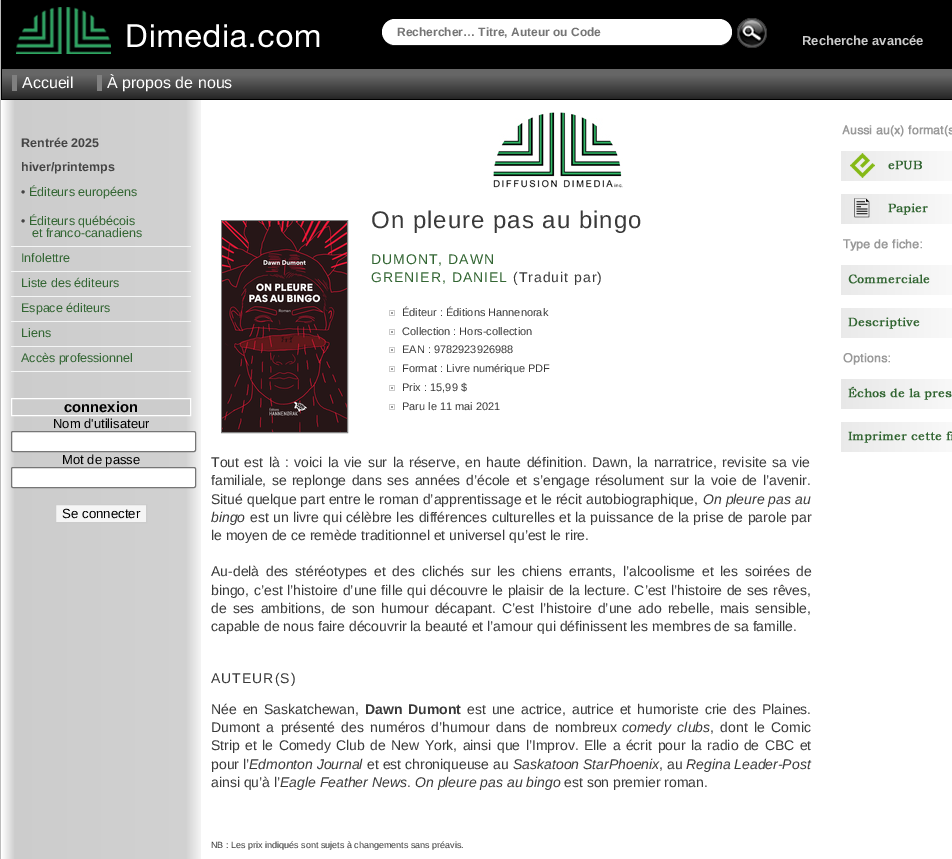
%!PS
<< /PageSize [952 859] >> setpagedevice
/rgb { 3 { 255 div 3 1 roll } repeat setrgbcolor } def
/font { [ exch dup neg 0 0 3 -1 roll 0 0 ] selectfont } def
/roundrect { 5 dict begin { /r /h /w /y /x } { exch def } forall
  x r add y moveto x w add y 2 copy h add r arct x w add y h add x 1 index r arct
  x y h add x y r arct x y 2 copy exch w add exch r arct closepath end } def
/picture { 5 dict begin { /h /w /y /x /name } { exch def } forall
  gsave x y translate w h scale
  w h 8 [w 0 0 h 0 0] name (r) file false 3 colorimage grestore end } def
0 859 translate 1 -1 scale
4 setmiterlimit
255 255 255 rgb
0 0 952 859 rectfill
(img/1.rgb) 1 100 200 759 picture
187 187 187 rgb
0 0 1 859 rectfill
0 0 0 rgb
1 0 951 100 rectfill
(img/2.rgb) 2 7 950 92 picture
26 26 26 rgb
382 32 moveto 382 40 388 46 395 46 curveto 722 46 lineto 728 44 732 39 732 32 curveto 732 39 726 45 719 45 curveto 395 45 lineto 388 45 382 39 382 32 curveto closepath fill
255 255 255 rgb
382 19 350 26 13 roundrect fill
(img/3.rgb) 737 18 30 30 picture
[
  [12 75 5 16 128 128 128]
  [97 75 5 16 128 128 128]
  [11 246 180 1 244 245 245]
  [11 271 180 1 244 245 245]
  [11 296 180 1 244 245 245]
  [11 321 180 1 244 245 245]
  [11 346 180 1 244 245 245]
  [11 371 180 1 244 245 245]
] { aload pop rgb rectfill } forall
204 204 204 rgb
11.5 398.5 moveto 190.5 398.5 lineto 190.5 415.5 lineto 11.5 415.5 lineto closepath gsave fill grestore
255 255 255 rgb
stroke
11.5 431.5 184 20 1.5 roundrect gsave fill grestore
118 118 118 rgb
stroke
255 255 255 rgb
11.5 467.5 184 20 1.5 roundrect gsave fill grestore
118 118 118 rgb
stroke
245 245 245 rgb
55.5 504.5 moveto 146.5 504.5 lineto 146.5 522.5 lineto 55.5 522.5 lineto closepath gsave fill grestore
204 204 204 rgb
stroke
128 128 128 rgb
221.5 220.5 126 212 rectstroke
(img/4.rgb) 222 221 125 211 picture
(img/5.rgb) 493 112 130 76 picture
(img/6.rgb) 389 310 6 6 picture
(img/6.rgb) 389 329 6 6 picture
(img/6.rgb) 389 347 6 6 picture
(img/6.rgb) 389 366 6 6 picture
(img/6.rgb) 389 385 6 6 picture
(img/6.rgb) 389 404 6 6 picture
(img/7.rgb) 842 125 110 12 picture
(img/8.rgb) 841 151 111 30 picture
(img/9.rgb) 841 194 111 30 picture
(img/10.rgb) 843 239 79 12 picture
(img/11.rgb) 841 265 111 30 picture
(img/12.rgb) 841 308 111 30 picture
(img/13.rgb) 843 353 47 12 picture
(img/14.rgb) 841 379 111 30 picture
(img/15.rgb) 841 422 111 30 picture
/LiberationSans-Bold 12 font
117 117 117 rgb
397 36 moveto (Rechercher… Titre, Auteur ou Code) show
/LiberationSans-Bold 13 font
204 204 204 rgb
802 45 moveto (Recherche avancée) show
/LiberationSans-Regular 16 font
255 255 255 rgb
22 88 moveto (Accueil) show
107 88 moveto (À propos de nous) show
/LiberationSans-Bold 12.5 font
68 68 68 rgb
21 147 moveto (Rentrée 2025) show
21 171 moveto (hiver/printemps) show
/LiberationSans-Regular 12.5 font
21 196 moveto (•) show
51 102 51 rgb
29 196 moveto (Éditeurs européens) show
68 68 68 rgb
21 225 moveto (•) show
51 102 51 rgb
[
  [(Éditeurs québécois) 29 225]
  [(et franco-canadiens) 32 237]
  [(Infolettre) 21 262]
  [(Liste des éditeurs) 21 287]
  [(Espace éditeurs) 21 312]
  [(Liens) 21 337]
  [(Accès professionnel) 21 362]
] { aload pop moveto show } forall
/LiberationSans-Bold 14.75 font
0 0 0 rgb
64 412 moveto (connexion) show
/LiberationSans-Regular 13 font
53 428 moveto (Nom d'utilisateur) show
62 464 moveto (Mot de passe) show
/LiberationSans-Regular 13.25 font
62 518 moveto (Se connecter) show
/LiberationSans-Regular 24 font
58 58 58 rgb
371 228 moveto 1 0 (On pleure pas au bingo) ashow
/LiberationSans-Regular 14 font
51 102 51 rgb
371 264 moveto 1 0 (DUMONT, DAWN) ashow
371 282 moveto 1 0 (GRENIER, DANIEL) ashow
58 58 58 rgb
513 282 moveto 1 0 (\(Traduit par\)) ashow
/LiberationSans-Regular 11 font
[
  [(Éditeur : Éditions Hannenorak) 402 316]
  [(Collection : Hors-collection) 402 335]
  [(EAN : 9782923926988) 402 353]
  [(Format : Livre numérique PDF) 402 372]
  [(Prix : 15,99 $) 402 391]
  [(Paru le 11 mai 2021) 402 410]
] { aload pop moveto show } forall
/LiberationSans-Regular 14 font
211 467 moveto 1.6 0 32 (Tout est là : voici la vie sur la réserve, en haute définition. Dawn, la narratrice, revisite sa vie) widthshow
211 485 moveto 1.5 0 32 (familiale, se replonge dans ses années d’école et s’engage résolument sur la voie de l’avenir.) widthshow
211 504 moveto (Situé quelque part entre le roman d’apprentissage et le récit autobiographique,) show
/LiberationSans-Italic 14 font
703 504 moveto (On pleure pas au) show
211 522 moveto (bingo) show
/LiberationSans-Regular 14 font
250 522 moveto 0.5 0 32 (est un livre qui célèbre les différences culturelles et la puissance de la prise de parole par) widthshow
211 540 moveto (le moyen de ce remède traditionnel et universel qu’est le rire.) show
211 576 moveto 2.75 0 32 (Au-delà des stéréotypes et des clichés sur les chiens errants, l’alcoolisme et les soirées de) widthshow
211 595 moveto 0.6 0 32 (bingo, c’est l’histoire d’une fille qui découvre le plaisir de la lecture. C’est l’histoire de ses rêves,) widthshow
211 613 moveto 2.25 0 32 (de ses ambitions, de son humour décapant. C’est l’histoire d’une ado rebelle, mais sensible,) widthshow
211 631 moveto (capable de nous faire découvrir la beauté et l’amour qui définissent les membres de sa famille.) show
211 683 moveto 1 0 (AUTEUR\(S\)) ashow
211 714 moveto 2 0 32 (Née en Saskatchewan,) widthshow
/LiberationSans-Bold 14 font
365 714 moveto 2 0 32 (Dawn Dumont) widthshow
/LiberationSans-Regular 14 font
467 714 moveto 2 0 32 (est une actrice, autrice et humoriste crie des Plaines.) widthshow
211 732 moveto 2.5 0 32 (Dumont a présenté des numéros d’humour dans de nombreux) widthshow
/LiberationSans-Italic 14 font
622 732 moveto 2.5 0 32 (comedy clubs) widthshow
/LiberationSans-Regular 14 font
710 732 moveto 2.5 0 32 (, dont le Comic) widthshow
211 750 moveto 1.5 0 32 (Strip et le Comedy Club de New York, ainsi que l’Improv. Elle a écrit pour la radio de CBC et) widthshow
211 769 moveto (pour l’) show
/LiberationSans-Italic 14 font
249 769 moveto (Edmonton Journal) show
/LiberationSans-Regular 14 font
367 769 moveto (et est chroniqueuse au) show
/LiberationSans-Italic 14 font
513 769 moveto (Saskatoon StarPhoenix) show
/LiberationSans-Regular 14 font
659 769 moveto (, au) show
/LiberationSans-Italic 14 font
686 769 moveto (Regina Leader-Post) show
/LiberationSans-Regular 14 font
211 787 moveto (ainsi qu’à l’) show
/LiberationSans-Italic 14 font
280 787 moveto (Eagle Feather News) show
/LiberationSans-Regular 14 font
407 787 moveto (.) show
/LiberationSans-Italic 14 font
415 787 moveto (On pleure pas au bingo) show
/LiberationSans-Regular 14 font
564 787 moveto (est son premier roman.) show
/LiberationSans-Regular 9 font
211 848 moveto (NB : Les prix indiqués sont sujets à changements sans préavis.) show
showpage
